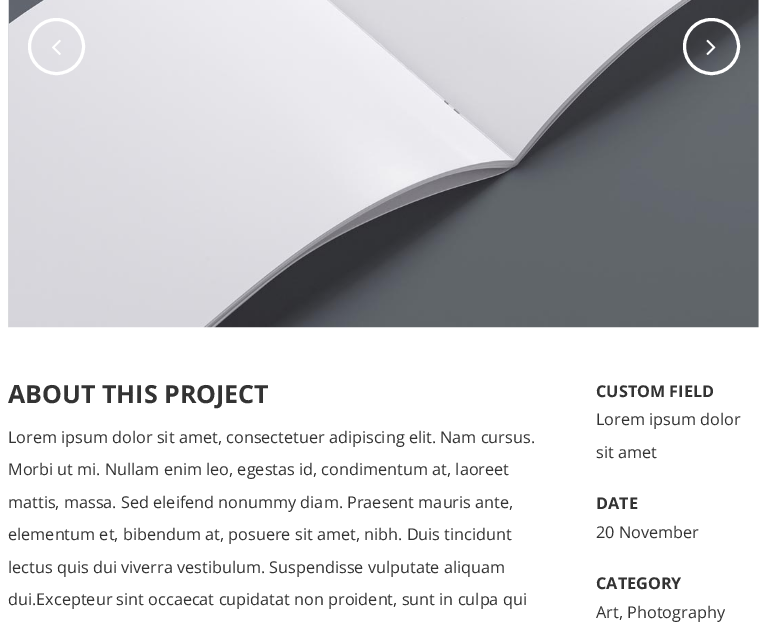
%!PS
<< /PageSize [766 622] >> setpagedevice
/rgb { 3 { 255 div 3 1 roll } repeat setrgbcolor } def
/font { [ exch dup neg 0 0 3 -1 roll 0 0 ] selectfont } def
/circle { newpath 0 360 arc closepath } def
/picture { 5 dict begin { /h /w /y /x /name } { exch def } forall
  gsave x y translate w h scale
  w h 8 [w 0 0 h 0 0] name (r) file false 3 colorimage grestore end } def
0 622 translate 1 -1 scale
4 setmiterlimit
255 255 255 rgb
0 0 766 622 rectfill
(img/1.rgb) 8 0 1 328 picture
(img/2.rgb) 8 0 751 328 picture
(img/3.rgb) 758 3 1 227 picture
3 setlinewidth
56.5 46.5 27 circle stroke
(img/4.rgb) 52 39 9 16 picture
711.5 46.5 27 circle stroke
(img/5.rgb) 706 39 10 16 picture
/OpenSans-Bold 25 font
51 51 51 rgb
8 403 moveto (ABOUT THIS PROJECT) show
/OpenSans-Regular 16.25 font
[
  [(Lorem ipsum dolor sit amet, consectetuer adipiscing elit. Nam cursus.) 8 443]
  [(Morbi ut mi. Nullam enim leo, egestas id, condimentum at, laoreet) 8 475]
  [(mattis, massa. Sed eleifend nonummy diam. Praesent mauris ante,) 8 508]
  [(elementum et, bibendum at, posuere sit amet, nibh. Duis tincidunt) 8 540]
  [(lectus quis dui viverra vestibulum. Suspendisse vulputate aliquam) 8 573]
  [(dui.Excepteur sint occaecat cupidatat non proident, sunt in culpa qui) 8 605]
] { aload pop moveto show } forall
/OpenSans-Bold 16.25 font
596 397 moveto (CUSTOM FIELD) show
/OpenSans-Regular 16.25 font
596 425 moveto (Lorem ipsum dolor) show
596 458 moveto (sit amet) show
/OpenSans-Bold 16.25 font
596 509 moveto (DATE) show
/OpenSans-Regular 16.25 font
596 538 moveto (20 November) show
/OpenSans-Bold 16.25 font
596 589 moveto (CATEGORY) show
/OpenSans-Regular 16.25 font
596 618 moveto (Art, Photography) show
showpage
